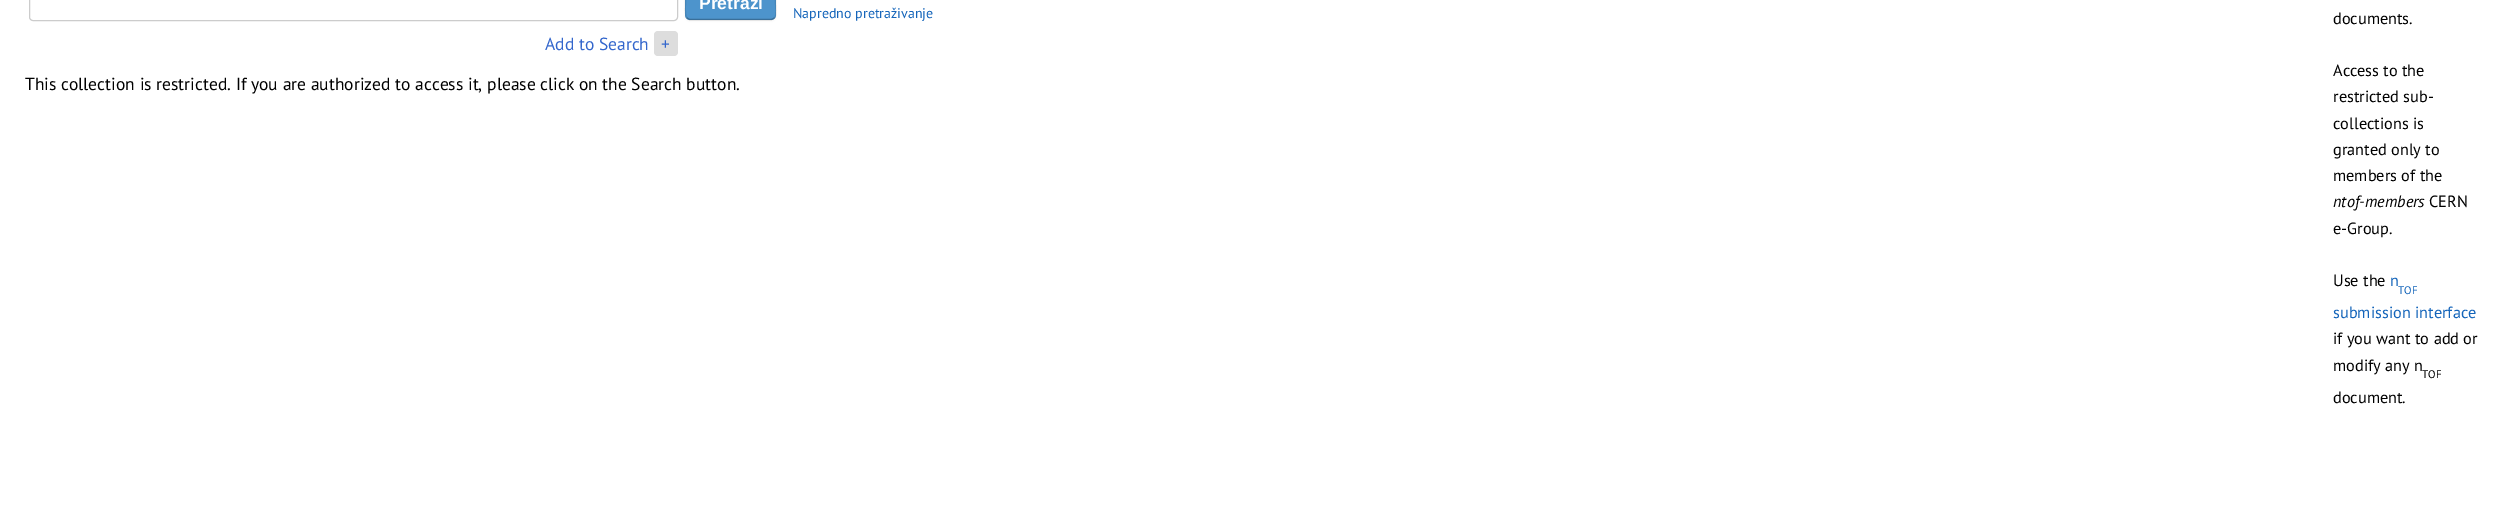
%!PS
<< /PageSize [2505 531] /PageUsesTransparency true >> setpagedevice
/rgb { 3 { 255 div 3 1 roll } repeat setrgbcolor } def
/font { [ exch dup neg 0 0 3 -1 roll 0 0 ] selectfont } def
/alpha { dup .setfillconstantalpha .setstrokeconstantalpha } def
/roundrect { 5 dict begin { /r /h /w /y /x } { exch def } forall
  x r add y moveto x w add y 2 copy h add r arct x w add y h add x 1 index r arct
  x y h add x y r arct x y 2 copy exch w add exch r arct closepath end } def
/shadow { 12 dict begin { /a /b /q /h /w /y /x } { exch def } forall gsave /was 0 def
  9 -2 -9 { dup b mul 4 div /e exch def 1 sub .425 mul 2.718 exch exp 1 add a .99 .min exch div /now exch def
    1 1 now sub 1 was sub div sub alpha /was now def
    w h .min e 2 mul add 0 gt { x e sub y e sub w e 2 mul add h e 2 mul add
      q e add b .6 mul add w h .min 2 div e add .min 0 .max roundrect fill } if } for grestore end } def
0 .pushpdf14devicefilter
0 531 translate 1 -1 scale
4 setmiterlimit
255 255 255 rgb
0 0 2505 531 rectfill
204 204 204 rgb
29.5 -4.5 648 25 3.5 roundrect stroke
0 0 0 rgb
685 -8 91 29 5 1 0.05 shadow
77 148 204 rgb
685 -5 91 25 5 roundrect fill
0.25 alpha
0 0 0 rgb
1.2 setlinewidth
774.5 18 moveto 771.5 19.5 lineto 689.5 19.5 lineto 687 18 lineto stroke
0.1 alpha
687 18 moveto 684.5 15.5 685.5 5.5 685.5 2.5 curveto 685.5 -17 683 -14.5 703.5 -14.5 curveto 757.5 -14.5 lineto 778 -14.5 775.5 -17 775.5 2.5 curveto 775.5 5.5 777 15.5 774.5 18 curveto stroke
1 alpha
221 221 221 rgb
654 31 24 25 4 roundrect fill
/LiberationSans-Bold 17.5 font
255 255 255 rgb
699 9 moveto (Pretraži) show
/PTSans-Regular 14 font
21 101 186 rgb
793 18 moveto (Napredno pretraživanje) show
/PTSans-Regular 17.5 font
51 102 204 rgb
545 50 moveto (Add to Search) show
661 50 moveto (+) show
0 0 0 rgb
25 90 moveto (This collection is restricted. If you are authorized to access it, please click on the Search button.) show
/PTSans-Regular 16.25 font
[
  [(documents.) 2333 24]
  [(Access to the) 2333 76]
  [(restricted sub-) 2333 102]
  [(collections is) 2333 129]
  [(granted only to) 2333 155]
  [(members of the) 2333 181]
] { aload pop moveto show } forall
/PTSans-Italic 16.25 font
2333 207 moveto (ntof-members) show
/PTSans-Regular 16.25 font
[
  [(CERN) 2429 207]
  [(e-Group.) 2333 234]
  [(Use the) 2333 286]
] { aload pop moveto show } forall
21 101 186 rgb
2390 286 moveto (n) show
/PTSans-Regular 11 font
2398 294 moveto (TOF) show
/PTSans-Regular 16.25 font
2333 318 moveto (submission interface) show
0 0 0 rgb
2333 344 moveto (if you want to add or) show
2333 371 moveto (modify any n) show
/PTSans-Regular 11 font
2422 378 moveto (TOF) show
/PTSans-Regular 16.25 font
2333 403 moveto (document.) show
.poppdf14devicefilter showpage
